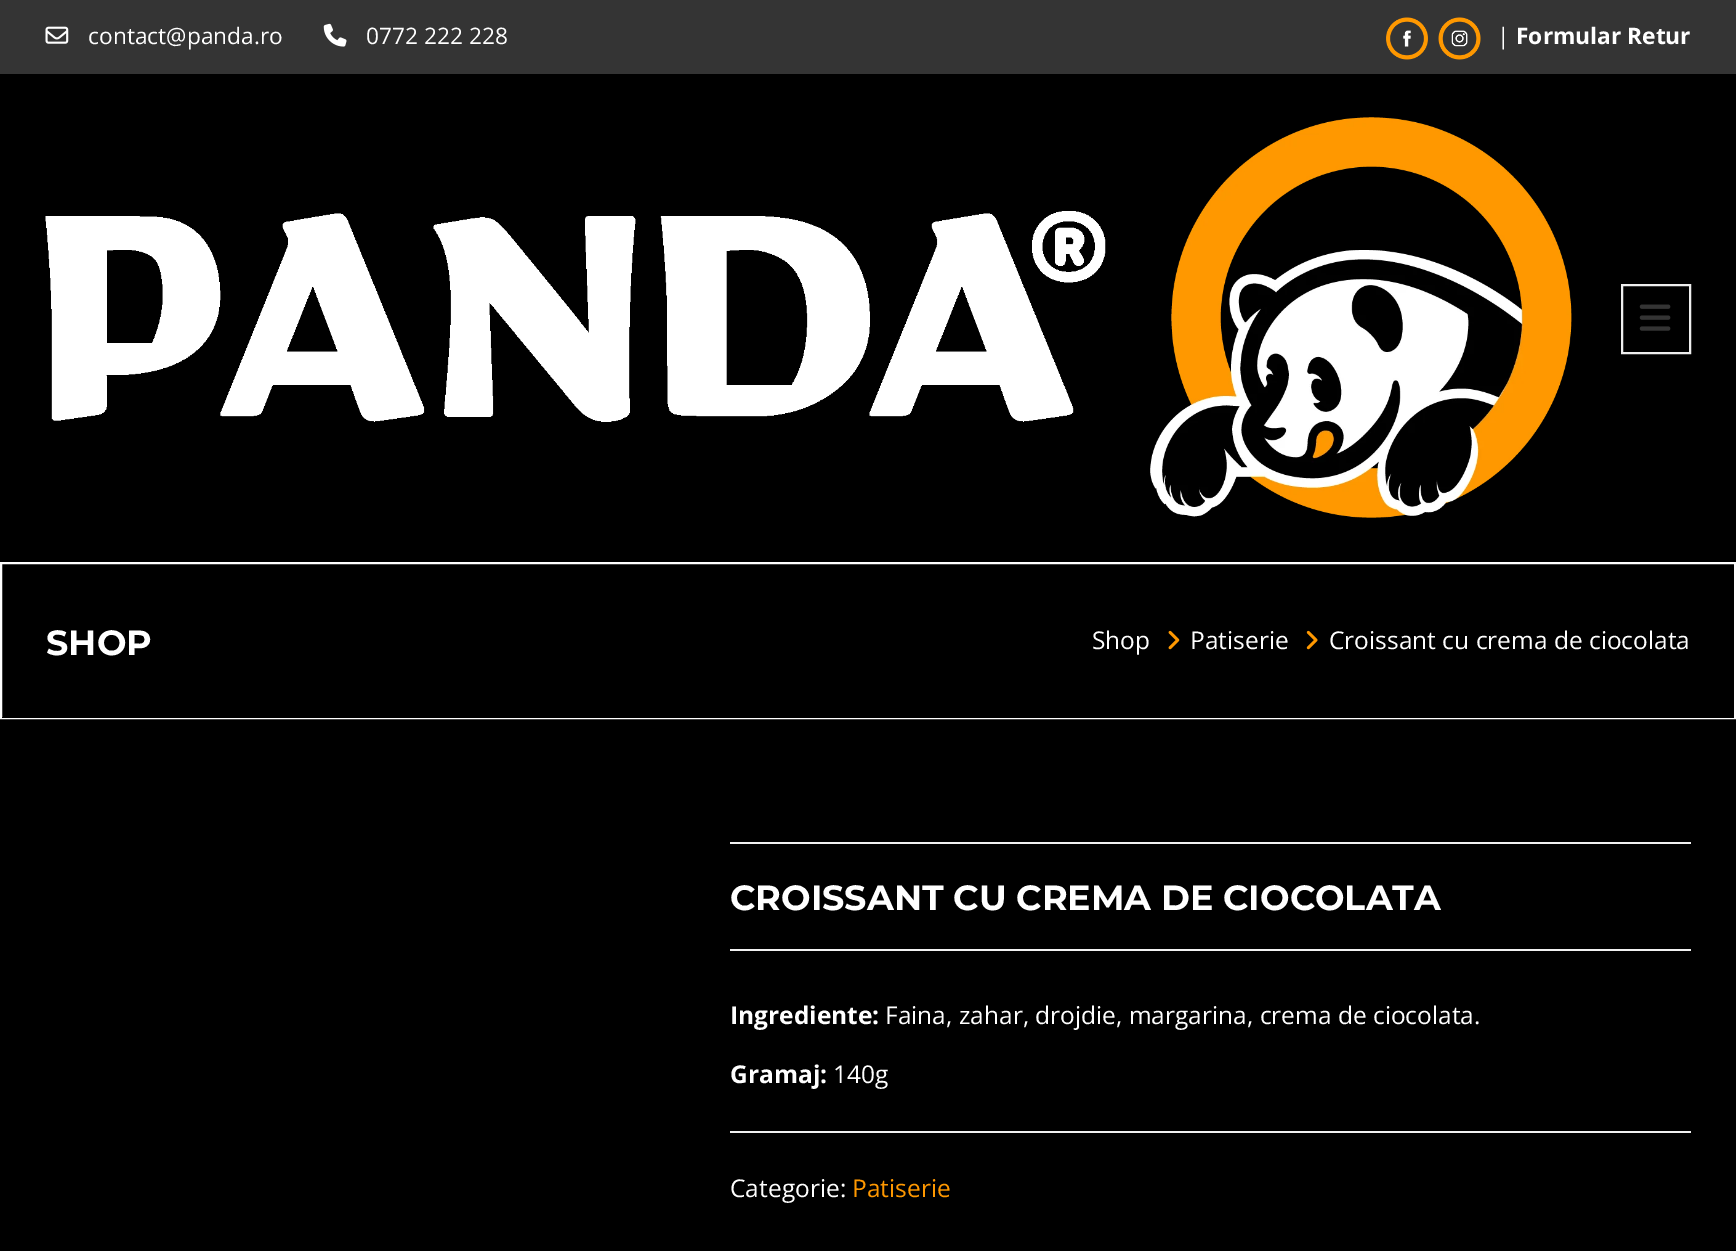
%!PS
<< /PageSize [1736 1251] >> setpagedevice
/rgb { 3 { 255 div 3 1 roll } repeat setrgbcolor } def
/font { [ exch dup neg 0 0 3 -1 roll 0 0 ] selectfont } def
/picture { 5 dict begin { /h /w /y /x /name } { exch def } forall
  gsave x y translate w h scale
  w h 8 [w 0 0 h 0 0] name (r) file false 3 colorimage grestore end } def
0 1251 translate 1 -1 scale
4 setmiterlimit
0 0 0 rgb
0 0 1736 1251 rectfill
52 52 52 rgb
0 0 1736 74 rectfill
(img/1.rgb) 45 26 24 18 picture
(img/2.rgb) 323 23 24 24 picture
(img/3.rgb) 1386 17 42 43 picture
(img/4.rgb) 1438 17 43 43 picture
(img/5.rgb) 45 117 1527 401 picture
238 238 238 rgb
2 setlinewidth
1622 285 68 68 rectstroke
(img/6.rgb) 1639 304 32 27 picture
255 255 255 rgb
1 563 1734 155 rectstroke
0 0 0 rgb
2 717 1732 1 rectfill
(img/7.rgb) 1168 630 12 20 picture
(img/8.rgb) 1306 630 12 20 picture
[
  [730 842 961 2 241 241 241]
  [730 949 961 2 241 241 241]
  [730 1131 961 2 241 241 241]
] { aload pop rgb rectfill } forall
/OpenSans-Regular 22.75 font
255 255 255 rgb
[
  [(contact@panda.ro) 88 44]
  [(0772 222 228) 366 44]
  [(|) 1497 44]
] { aload pop moveto show } forall
/OpenSans-Bold 22.75 font
1516 44 moveto (Formular Retur) show
/Montserrat-Bold 35 font
46 655 moveto (SHOP) show
/OpenSans-Regular 24.5 font
[
  [(Shop) 1092 649]
  [(Patiserie) 1190 649]
  [(Croissant cu crema de ciocolata) 1329 649]
] { aload pop moveto show } forall
/Montserrat-Bold 35 font
730 910 moveto (CROISSANT CU CREMA DE CIOCOLATA) show
/OpenSans-Bold 24.5 font
730 1024 moveto (Ingrediente:) show
/OpenSans-Regular 24.5 font
885 1024 moveto (Faina, zahar, drojdie, margarina, crema de ciocolata.) show
/OpenSans-Bold 24.5 font
730 1083 moveto (Gramaj:) show
/OpenSans-Regular 24.5 font
833 1083 moveto (140g) show
730 1197 moveto (Categorie:) show
255 152 0 rgb
852 1197 moveto (Patiserie) show
showpage
